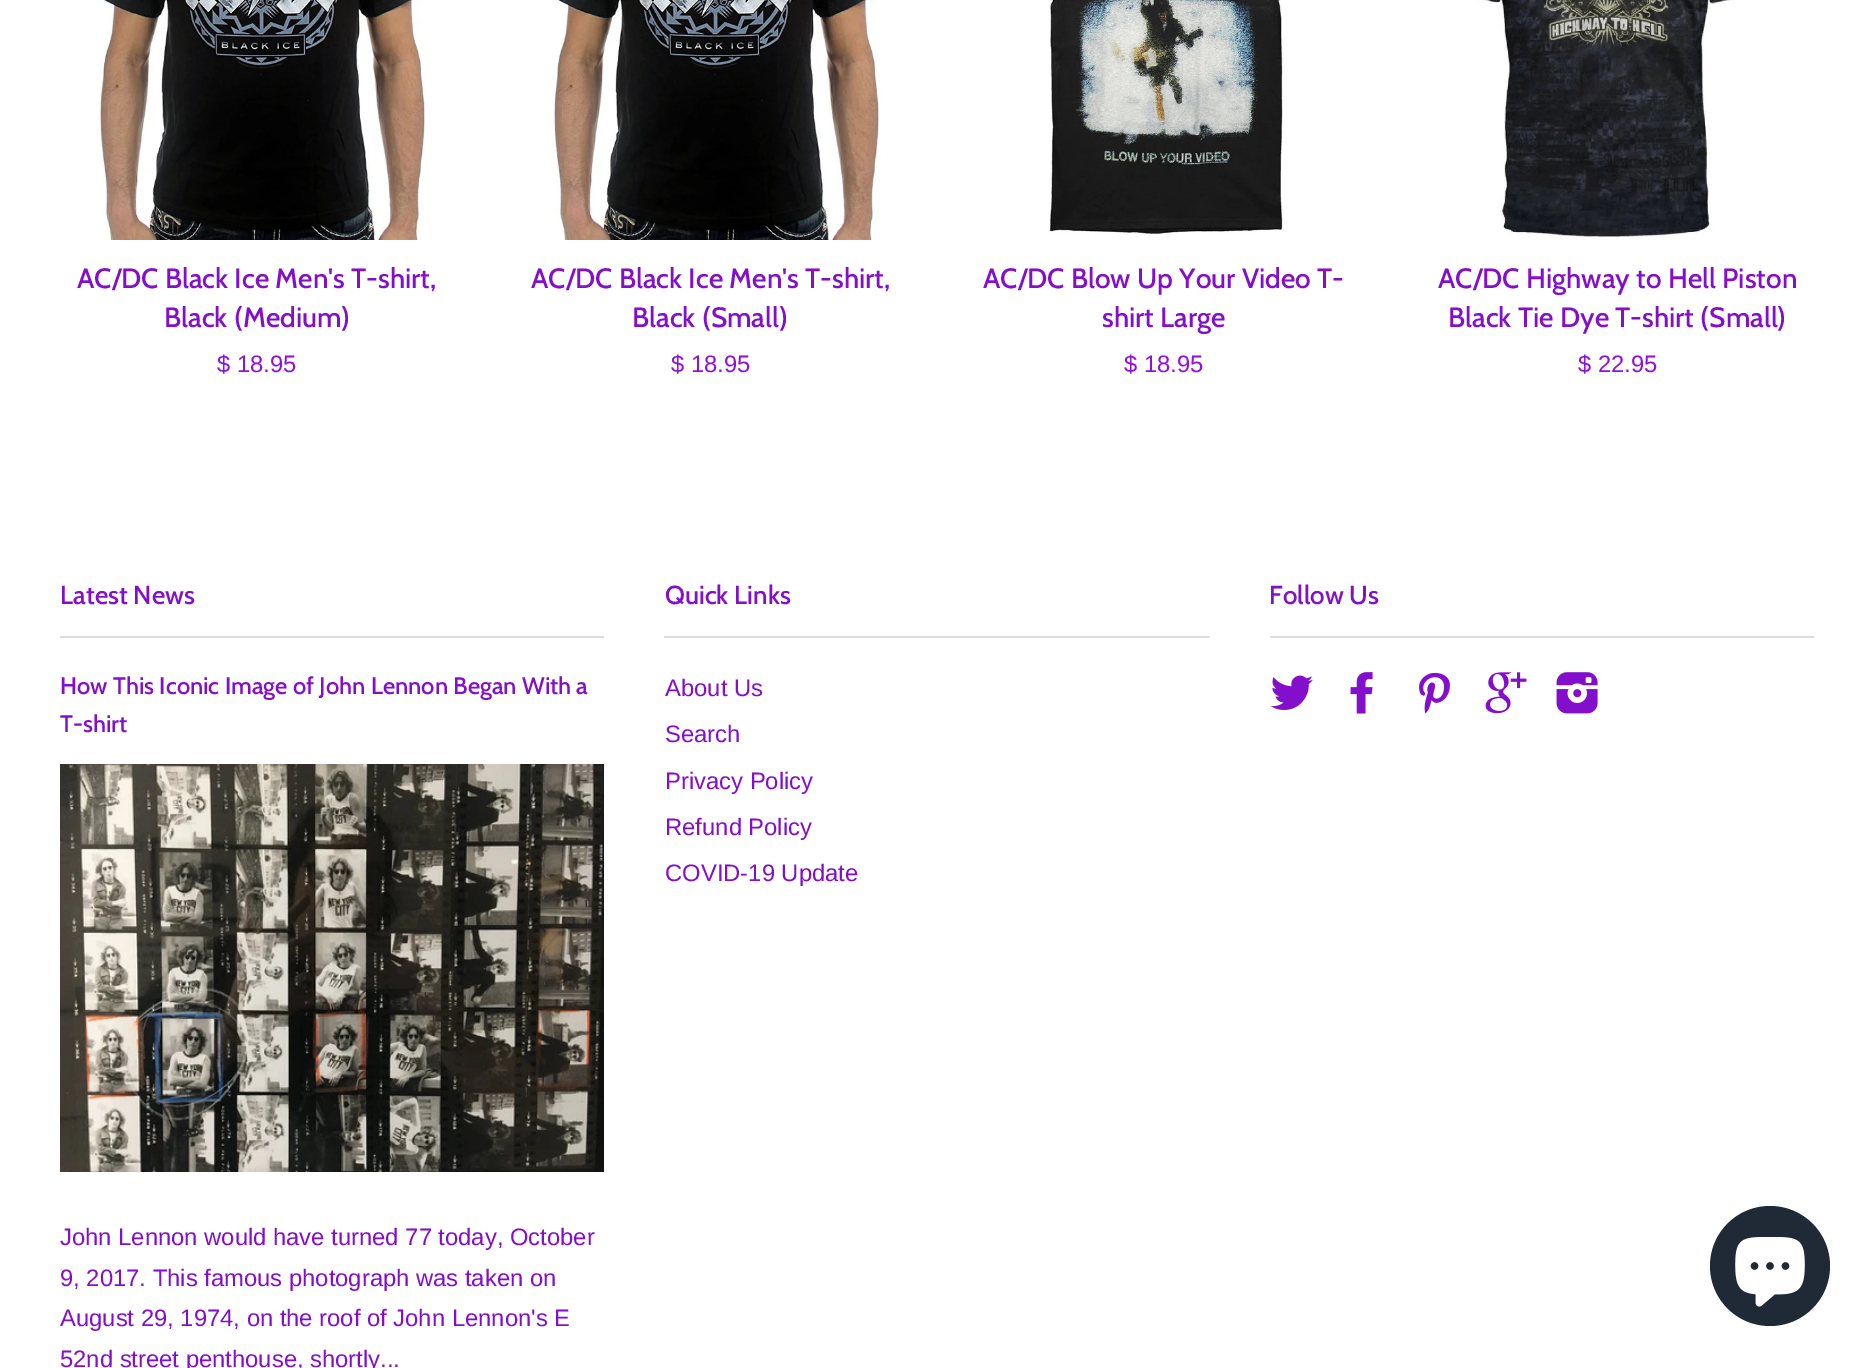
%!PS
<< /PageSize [1874 1368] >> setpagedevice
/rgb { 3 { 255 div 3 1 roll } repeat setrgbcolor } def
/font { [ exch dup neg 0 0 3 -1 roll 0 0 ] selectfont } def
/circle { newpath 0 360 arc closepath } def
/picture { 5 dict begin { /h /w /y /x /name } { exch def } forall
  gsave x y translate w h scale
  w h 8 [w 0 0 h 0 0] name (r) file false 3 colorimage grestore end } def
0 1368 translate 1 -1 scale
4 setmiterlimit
255 255 255 rgb
0 0 1874 1368 rectfill
(img/1.rgb) 97 0 330 240 picture
(img/1.rgb) 551 0 330 240 picture
(img/2.rgb) 1049 0 235 235 picture
(img/3.rgb) 1477 0 258 240 picture
221 221 221 rgb
60 636 544 2 rectfill
(img/4.rgb) 60 764 544 408 picture
664 636 546 2 rectfill
1270 636 544 2 rectfill
(img/5.rgb) 1270 675 43 35 picture
(img/6.rgb) 1350 672 23 42 picture
(img/7.rgb) 1419 672 31 42 picture
(img/8.rgb) 1485 672 42 42 picture
(img/9.rgb) 1556 672 42 42 picture
32 42 54 rgb
1770 1266 60 circle fill
(img/10.rgb) 1735 1237 70 70 picture
/Cabin-Medium 28 font
131 15 205 rgb
77 288 moveto (AC/DC Black Ice Men's T-shirt,) show
164 327 moveto (Black \(Medium\)) show
/LiberationSans-Regular 23.8 font
143 16 224 rgb
217 372 moveto ($ 18.95) show
/Cabin-Medium 28 font
131 15 205 rgb
531 288 moveto (AC/DC Black Ice Men's T-shirt,) show
632 327 moveto (Black \(Small\)) show
/LiberationSans-Regular 23.8 font
143 16 224 rgb
671 372 moveto ($ 18.95) show
/Cabin-Medium 28 font
131 15 205 rgb
983 288 moveto (AC/DC Blow Up Your Video T-) show
1102 327 moveto (shirt Large) show
/LiberationSans-Regular 23.8 font
143 16 224 rgb
1124 372 moveto ($ 18.95) show
/Cabin-Medium 28 font
131 15 205 rgb
1438 288 moveto (AC/DC Highway to Hell Piston) show
1448 327 moveto (Black Tie Dye T-shirt \(Small\)) show
/LiberationSans-Regular 23.8 font
143 16 224 rgb
1578 372 moveto ($ 22.95) show
/Cabin-Medium 26 font
131 15 205 rgb
60 604 moveto (Latest News) show
/Cabin-Medium 23.8 font
60 694 moveto (How This Iconic Image of John Lennon Began With a) show
60 732 moveto (T-shirt) show
/LiberationSans-Regular 23.8 font
[
  [(John Lennon would have turned 77 today, October) 60 1245]
  [(9, 2017. This famous photograph was taken on) 60 1286]
  [(August 29, 1974, on the roof of John Lennon's E) 60 1326]
  [(52nd street penthouse, shortly...) 60 1367]
] { aload pop moveto show } forall
/Cabin-Medium 26 font
665 604 moveto (Quick Links) show
/LiberationSans-Regular 23.8 font
[
  [(About Us) 665 696]
  [(Search) 665 742]
  [(Privacy Policy) 665 789]
  [(Refund Policy) 665 835]
  [(COVID-19 Update) 665 881]
] { aload pop moveto show } forall
/Cabin-Medium 26 font
1269 604 moveto (Follow Us) show
showpage
